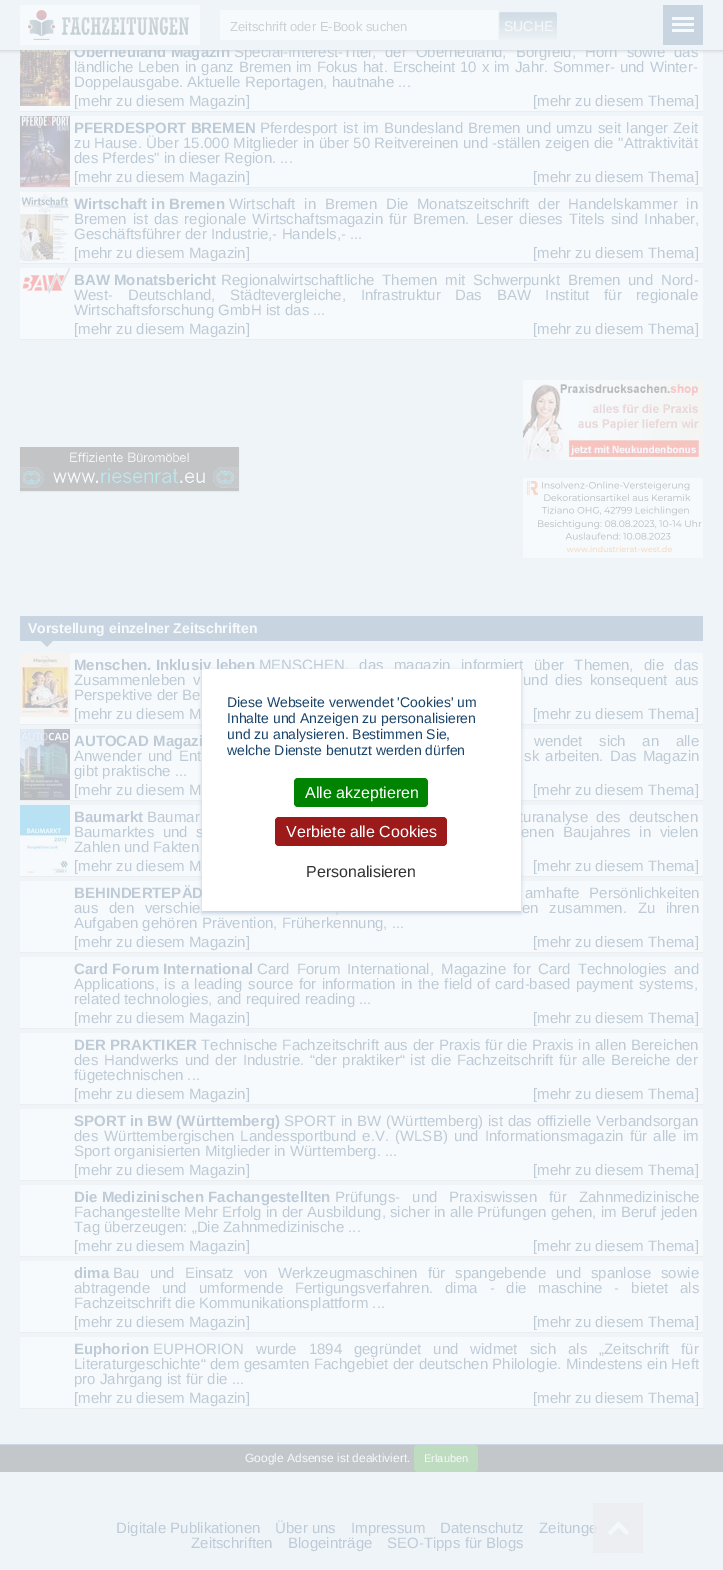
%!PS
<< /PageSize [723 1570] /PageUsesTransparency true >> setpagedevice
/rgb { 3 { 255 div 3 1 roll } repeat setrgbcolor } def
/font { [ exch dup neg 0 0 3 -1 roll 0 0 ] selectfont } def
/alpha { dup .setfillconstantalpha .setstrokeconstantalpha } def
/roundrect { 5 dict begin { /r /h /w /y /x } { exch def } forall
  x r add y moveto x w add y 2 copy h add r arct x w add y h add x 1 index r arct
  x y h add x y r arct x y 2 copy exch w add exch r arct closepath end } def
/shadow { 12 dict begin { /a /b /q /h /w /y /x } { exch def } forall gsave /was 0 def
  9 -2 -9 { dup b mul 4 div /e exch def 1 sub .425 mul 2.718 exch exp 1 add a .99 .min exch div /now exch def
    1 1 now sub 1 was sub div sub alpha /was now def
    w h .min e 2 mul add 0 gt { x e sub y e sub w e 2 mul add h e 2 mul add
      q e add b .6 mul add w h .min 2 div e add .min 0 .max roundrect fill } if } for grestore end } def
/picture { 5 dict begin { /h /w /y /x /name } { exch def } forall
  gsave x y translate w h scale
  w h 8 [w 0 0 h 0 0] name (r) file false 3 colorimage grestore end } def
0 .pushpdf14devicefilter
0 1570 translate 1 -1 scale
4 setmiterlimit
239 244 248 rgb
0 0 723 1570 rectfill
247 250 252 rgb
20 50 683 61 rectfill
(img/2.rgb) 20 50 50 56 picture
184 186 188 rgb
0 0 723 50 0 2 1 shadow
[
  [20 111 683 1 235 237 239]
  [70 116 633 71 247 250 252]
  [20 187 683 1 235 237 239]
] { aload pop rgb rectfill } forall
(img/3.rgb) 20 116 50 71 picture
247 250 252 rgb
70 192 633 71 rectfill
235 237 239 rgb
20 263 683 1 rectfill
(img/4.rgb) 20 192 50 71 picture
247 250 252 rgb
20 268 683 71 rectfill
235 237 239 rgb
20 339 683 1 rectfill
(img/5.rgb) 22 268 48 26 picture
230 233 235 rgb
20 448 219 44 0 1 1 shadow
(img/6.rgb) 20 447 219 44 picture
(img/7.rgb) 523 380 180 80 picture
(img/8.rgb) 523 478 180 80 picture
200 213 225 rgb
20 616 683 25 rectfill
41 641 moveto 53 641 lineto 47 647 lineto closepath fill
247 250 252 rgb
20 653 683 71 rectfill
235 237 239 rgb
20 724 683 1 rectfill
(img/9.rgb) 20 653 50 64 picture
247 250 252 rgb
70 729 633 71 rectfill
235 237 239 rgb
20 800 683 1 rectfill
(img/10.rgb) 20 729 50 71 picture
247 250 252 rgb
70 805 633 71 rectfill
235 237 239 rgb
20 876 683 1 rectfill
(img/11.rgb) 20 805 50 71 picture
[
  [20 881 683 71 247 250 252]
  [20 952 683 1 235 237 239]
  [20 957 683 71 247 250 252]
  [20 1028 683 1 235 237 239]
  [20 1033 683 71 247 250 252]
  [20 1104 683 1 235 237 239]
  [20 1109 683 71 247 250 252]
  [20 1180 683 1 235 237 239]
  [20 1185 683 71 247 250 252]
  [20 1256 683 1 235 237 239]
  [20 1261 683 71 247 250 252]
  [20 1332 683 1 235 237 239]
  [20 1337 683 71 247 250 252]
  [20 1408 683 1 235 237 239]
] { aload pop rgb rectfill } forall
187 202 221 rgb
202 671 319 242 0 2 1 shadow
203 216 227 rgb
0 1444 723 1 rectfill
196 199 201 rgb
0 1445 723 27 rectfill
190 220 191 rgb
414 1445 64 27 4 roundrect fill
/LiberationSans-Bold 15 font
190 203 215 rgb
74 57 moveto (Oberneuland Magazin) show
/LiberationSans-Regular 15 font
234 57 moveto 5 0 32 (Special-Interest-Titel, der Oberneuland, Borgfeld, Horn sowie das) widthshow
239 244 248 rgb
0 0 723 50 rectfill
(img/1.rgb) 20 5 180 40 picture
gsave 499 12 58 28 2 roundrect clip newpath
<< /ShadingType 2 /ColorSpace /DeviceRGB /Coords [528 12 528 40] /Extend [true true] /Function << /FunctionType 2 /Domain [0 1] /C0 [0.812 0.855 0.89] /C1 [0.925 0.949 0.965] /N 1 >> >> shfill grestore
498.5 11.5 59 29 2.5 roundrect stroke
/LiberationSans-Regular 14 font
247 250 252 rgb
504 31 moveto (SUCHE) show
220 10 278 30 rectfill
/LiberationSans-Regular 13 font
205 207 209 rgb
230 31 moveto (Zeitschrift oder E-Book suchen) show
[
  [663 5 40 40 200 213 224]
  [672 29 22 3 247 250 252]
  [672 23 22 3 247 250 252]
  [672 17 22 3 247 250 252]
] { aload pop rgb rectfill } forall
/LiberationSans-Regular 15 font
190 203 215 rgb
74 72 moveto 0.75 0 32 (ländliche Leben in ganz Bremen im Fokus hat. Erscheint 10 x im Jahr. Sommer- und Winter-) widthshow
[
  [(Doppelausgabe. Aktuelle Reportagen, hautnahe ...) 74 87]
  [([mehr zu diesem Magazin]) 74 106]
  [([mehr zu diesem Thema]) 533 106]
] { aload pop moveto show } forall
260 133 moveto 1 0 32 (Pferdesport ist im Bundesland Bremen und umzu seit langer Zeit) widthshow
74 148 moveto 0.25 0 32 (zu Hause. Über 15.000 Mitglieder in über 50 Reitvereinen und -ställen zeigen die "Attraktivität) widthshow
74 163 moveto (des Pferdes" in dieser Region. ...) show
/LiberationSans-Bold 15 font
74 133 moveto (PFERDESPORT BREMEN) show
/LiberationSans-Regular 15 font
74 182 moveto ([mehr zu diesem Magazin]) show
533 182 moveto ([mehr zu diesem Thema]) show
/LiberationSans-Bold 15 font
74 209 moveto (Wirtschaft in Bremen) show
/LiberationSans-Regular 15 font
229 209 moveto 4.5 0 32 (Wirtschaft in Bremen Die Monatszeitschrift der Handelskammer in) widthshow
74 224 moveto 2 0 32 (Bremen ist das regionale Wirtschaftsmagazin für Bremen. Leser dieses Titels sind Inhaber,) widthshow
[
  [(Geschäftsführer der Industrie,- Handels,- ...) 74 239]
  [([mehr zu diesem Magazin]) 74 258]
  [([mehr zu diesem Thema]) 533 258]
] { aload pop moveto show } forall
221 285 moveto 3.75 0 32 (Regionalwirtschaftliche Themen mit Schwerpunkt Bremen und Nord-) widthshow
74 300 moveto 10.5 0 32 (West- Deutschland, Städtevergleiche, Infrastruktur Das BAW Institut für regionale) widthshow
74 315 moveto (Wirtschaftsforschung GmbH ist das ...) show
/LiberationSans-Bold 15 font
74 285 moveto (BAW Monatsbericht) show
/LiberationSans-Regular 15 font
74 334 moveto ([mehr zu diesem Magazin]) show
533 334 moveto ([mehr zu diesem Thema]) show
/LiberationSans-Bold 14 font
247 250 252 rgb
28 633 moveto (Vorstellung einzelner Zeitschriften) show
/LiberationSans-Regular 15 font
190 203 215 rgb
259 670 moveto 6.25 0 32 (MENSCHEN. das magazin informiert über Themen, die das) widthshow
74 685 moveto 3 0 32 (Zusammenleben v) widthshow
523 685 moveto 3 0 32 (und dies konsequent aus) widthshow
74 700 moveto (Perspektive der Be) show
/LiberationSans-Bold 15 font
74 670 moveto (Menschen. Inklusiv leben) show
/LiberationSans-Regular 15 font
74 719 moveto ([mehr zu diesem M) show
533 719 moveto ([mehr zu diesem Thema]) show
/LiberationSans-Bold 15 font
74 746 moveto (AUTOCAD Magazi) show
/LiberationSans-Regular 15 font
534 746 moveto 12.5 0 32 (wendet sich an alle) widthshow
74 761 moveto 2 0 32 (Anwender und Ent) widthshow
524 761 moveto 2 0 32 (sk arbeiten. Das Magazin) widthshow
[
  [(gibt praktische ...) 74 776]
  [([mehr zu diesem M) 74 795]
  [([mehr zu diesem Thema]) 533 795]
] { aload pop moveto show } forall
147 822 moveto 4 0 32 (Baumar) widthshow
519 822 moveto 4 0 32 (turanalyse des deutschen) widthshow
74 837 moveto 4.5 0 32 (Baumarktes und s) widthshow
521 837 moveto 4.5 0 32 (enen Baujahres in vielen) widthshow
74 852 moveto (Zahlen und Fakten) show
/LiberationSans-Bold 15 font
74 822 moveto (Baumarkt) show
/LiberationSans-Regular 15 font
74 871 moveto ([mehr zu diesem M) show
533 871 moveto ([mehr zu diesem Thema]) show
/LiberationSans-Bold 15 font
74 898 moveto (BEHINDERTEPÄD) show
/LiberationSans-Regular 15 font
525 898 moveto 6 0 32 (amhafte Persönlichkeiten) widthshow
74 913 moveto 6.5 0 32 (aus den verschie) widthshow
335 913 moveto 6.5 0 32 (,) widthshow
522 913 moveto 6.5 0 32 (en zusammen. Zu ihren) widthshow
[
  [(Aufgaben gehören Prävention, Früherkennung, ...) 74 928]
  [([mehr zu diesem Magazin]) 74 947]
  [([mehr zu diesem Thema]) 533 947]
] { aload pop moveto show } forall
/LiberationSans-Bold 15 font
74 974 moveto (Card Forum International) show
/LiberationSans-Regular 15 font
257 974 moveto 3 0 32 (Card Forum International, Magazine for Card Technologies and) widthshow
74 989 moveto 1.25 0 32 (Applications, is a leading source for information in the field of card-based payment systems,) widthshow
[
  [(related technologies, and required reading ...) 74 1004]
  [([mehr zu diesem Magazin]) 74 1023]
  [([mehr zu diesem Thema]) 533 1023]
] { aload pop moveto show } forall
201 1050 moveto 0.5 0 32 (Technische Fachzeitschrift aus der Praxis für die Praxis in allen Bereichen) widthshow
74 1065 moveto 1.5 0 32 (des Handwerks und der Industrie. “der praktiker“ ist die Fachzeitschrift für alle Bereiche der) widthshow
74 1080 moveto (fügetechnischen ...) show
/LiberationSans-Bold 15 font
74 1050 moveto (DER PRAKTIKER) show
/LiberationSans-Regular 15 font
74 1099 moveto ([mehr zu diesem Magazin]) show
533 1099 moveto ([mehr zu diesem Thema]) show
/LiberationSans-Bold 15 font
74 1126 moveto (SPORT in BW \(Württemberg\)) show
/LiberationSans-Regular 15 font
284 1126 moveto 0.75 0 32 (SPORT in BW \(Württemberg\) ist das offizielle Verbandsorgan) widthshow
74 1141 moveto 1.9 0 32 (des Württembergischen Landessportbund e.V. \(WLSB\) und Informationsmagazin für alle im) widthshow
[
  [(Sport organisierten Mitglieder in Württemberg. ...) 74 1156]
  [([mehr zu diesem Magazin]) 74 1175]
  [([mehr zu diesem Thema]) 533 1175]
] { aload pop moveto show } forall
335 1202 moveto 8 0 32 (Prüfungs- und Praxiswissen für Zahnmedizinische) widthshow
74 1217 moveto (Fachangestellte Mehr Erfolg in der Ausbildung, sicher in alle Prüfungen gehen, im Beruf jeden) show
74 1232 moveto (Tag überzeugen: „Die Zahnmedizinische ...) show
/LiberationSans-Bold 15 font
74 1202 moveto (Die Medizinischen Fachangestellten) show
/LiberationSans-Regular 15 font
74 1251 moveto ([mehr zu diesem Magazin]) show
533 1251 moveto ([mehr zu diesem Thema]) show
/LiberationSans-Bold 15 font
74 1278 moveto (dima) show
/LiberationSans-Regular 15 font
113 1278 moveto 5.75 0 32 (Bau und Einsatz von Werkzeugmaschinen für spangebende und spanlose sowie) widthshow
74 1293 moveto 7.75 0 32 (abtragende und umformende Fertigungsverfahren. dima - die maschine - bietet als) widthshow
[
  [(Fachzeitschrift die Kommunikationsplattform ...) 74 1308]
  [([mehr zu diesem Magazin]) 74 1327]
  [([mehr zu diesem Thema]) 533 1327]
] { aload pop moveto show } forall
153 1354 moveto 7.75 0 32 (EUPHORION wurde 1894 gegründet und widmet sich als „Zeitschrift für) widthshow
74 1369 moveto 0.25 0 32 (Literaturgeschichte“ dem gesamten Fachgebiet der deutschen Philologie. Mindestens ein Heft) widthshow
74 1384 moveto (pro Jahrgang ist für die ...) show
/LiberationSans-Bold 15 font
74 1354 moveto (Euphorion) show
/LiberationSans-Regular 15 font
74 1403 moveto ([mehr zu diesem Magazin]) show
533 1403 moveto ([mehr zu diesem Thema]) show
255 255 255 rgb
202 669 319 242 rectfill
/LiberationSans-Regular 14 font
27 68 106 rgb
[
  [(Diese Webseite verwendet 'Cookies' um) 227 707]
  [(Inhalte und Anzeigen zu personalisieren) 227 723]
  [(und zu analysieren. Bestimmen Sie,) 227 739]
  [(welche Dienste benutzt werden dürfen) 227 755]
] { aload pop moveto show } forall
0 131 0 rgb
294 778 134 29 4 roundrect fill
/LiberationSans-Regular 16 font
255 255 255 rgb
305 798 moveto (Alle akzeptieren) show
156 26 26 rgb
275 817 172 29 4 roundrect fill
255 255 255 rgb
286 837 moveto (Verbiete alle Cookies) show
51 51 51 rgb
306 877 moveto (Personalisieren) show
/LiberationSans-Regular 12 font
247 250 252 rgb
245 1462 moveto (Google Adsense ist deaktiviert.) show
/LiberationSans-Regular 11 font
424 1462 moveto (Erlauben) show
/LiberationSans-Regular 15 font
190 203 215 rgb
[
  [(Digitale Publikationen) 116 1533]
  [(Über uns) 275 1533]
  [(Impressum) 351 1533]
  [(Datenschutz) 440 1533]
  [(Zeitunge) 539 1533]
  [(Zeitschriften) 191 1548]
  [(Blogeinträge) 288 1548]
  [(SEO-Tipps für Blogs) 387 1548]
] { aload pop moveto show } forall
0.8 alpha
235 237 239 rgb
593 1503 50 50 rectfill
1 alpha
(img/12.rgb) 608 1522 21 13 picture
.poppdf14devicefilter showpage
